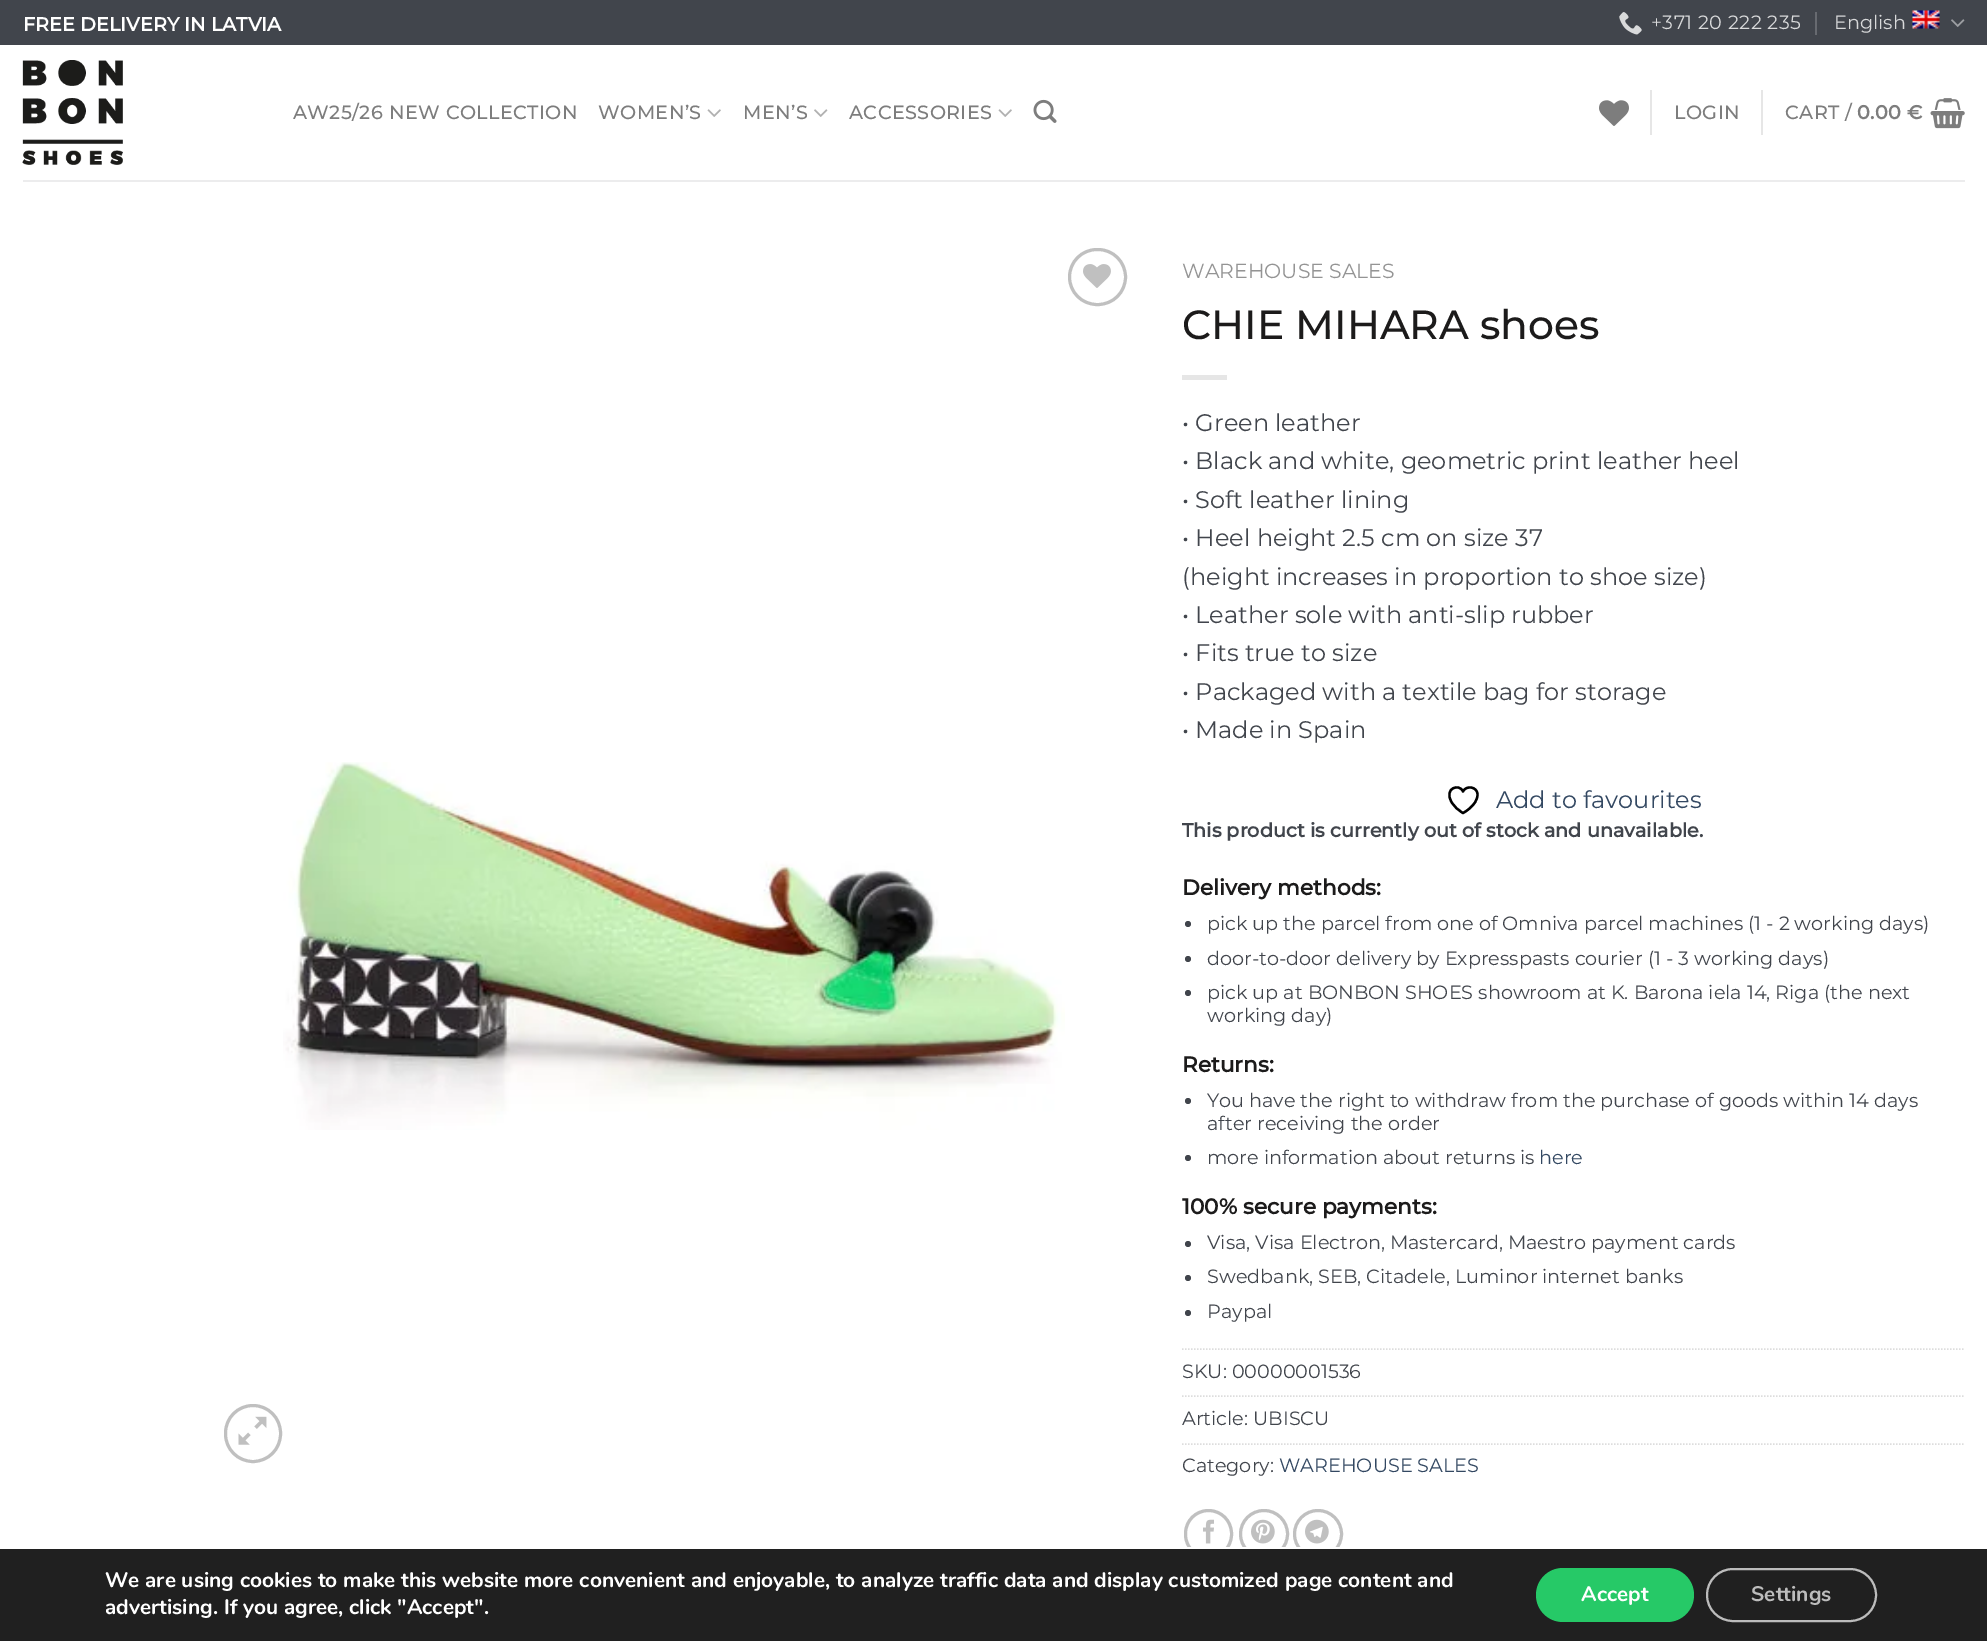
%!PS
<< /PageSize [1987 1641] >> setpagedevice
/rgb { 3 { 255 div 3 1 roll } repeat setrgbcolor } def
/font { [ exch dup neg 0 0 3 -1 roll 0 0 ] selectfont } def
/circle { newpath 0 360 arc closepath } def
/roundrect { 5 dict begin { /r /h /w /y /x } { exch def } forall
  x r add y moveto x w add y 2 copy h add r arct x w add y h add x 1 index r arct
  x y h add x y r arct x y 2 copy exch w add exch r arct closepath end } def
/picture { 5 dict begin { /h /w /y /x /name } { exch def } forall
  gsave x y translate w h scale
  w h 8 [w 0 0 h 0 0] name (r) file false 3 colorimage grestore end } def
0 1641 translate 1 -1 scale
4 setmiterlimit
255 255 255 rgb
0 0 1987 1641 rectfill
65 69 76 rgb
0 0 1987 45 rectfill
(img/1.rgb) 1619 12 23 23 picture
103 106 112 rgb
1815 12 2 23 rectfill
(img/2.rgb) 1912 10 28 19 picture
(img/3.rgb) 1951 19 14 8 picture
(img/4.rgb) 22 60 101 105 picture
(img/5.rgb) 707 109 14 8 picture
(img/6.rgb) 814 109 14 8 picture
(img/5.rgb) 998 109 14 8 picture
(img/7.rgb) 1033 99 24 24 picture
(img/8.rgb) 1599 100 30 26 picture
230 230 230 rgb
1650 90 2 45 rectfill
1761 90 2 45 rectfill
(img/9.rgb) 1930 98 35 31 picture
236 236 237 rgb
23 180 1942 2 rectfill
192 192 192 rgb
3 setlinewidth
1069.5 249.5 56 55 27.5 roundrect stroke
(img/10.rgb) 1083 264 28 24 picture
(img/11.rgb) 283 762 782 368 picture
225.5 1405.5 55 56 27.5 roundrect stroke
(img/12.rgb) 238 1416 29 29 picture
230 230 230 rgb
1182 375 45 5 rectfill
0 0 0 rgb
2.3 setlinewidth
1 setlinecap
1 setlinejoin
1477.5 794.5 moveto 1477.5 786.5 1466 785 1463 791.5 curveto 1459.5 783 1443.5 788 1451.5 802 curveto 1454 806.5 1458.5 810.5 1463 813 curveto 1463 813 1477.5 805.5 1477.5 794.5 curveto closepath stroke
65 69 76 rgb
1188 924 3 circle fill
1188 959 3 circle fill
1188 993 3 circle fill
1188 1101 3 circle fill
1188 1158 3 circle fill
1188 1244 3 circle fill
1188 1278 3 circle fill
1188 1313 3 circle fill
221 221 221 rgb
1.5 setlinewidth
0 setlinecap
0 setlinejoin
[1.5 1.5] 0 setdash
1182 1349 moveto 1965 1349 lineto stroke
1182 1396 moveto 1965 1396 lineto stroke
1182 1444 moveto 1965 1444 lineto stroke
192 192 192 rgb
3 setlinewidth
[] 0 setdash
1185.5 1510.5 46 47 23 roundrect stroke
(img/13.rgb) 1203 1519 11 25 picture
1264 1534 23.5 circle stroke
(img/14.rgb) 1251 1519 24 25 picture
1318 1534 23.5 circle stroke
(img/15.rgb) 1305 1519 24 25 picture
32 32 32 rgb
0 1549 1987 92 rectfill
255 255 255 rgb
1187 1547 153 2 rectfill
38 201 103 rgb
1536 1568 158 54 27 roundrect fill
188 188 188 rgb
2 setlinewidth
1707 1569 169 52 26 roundrect stroke
/Montserrat-Bold 19.2 font
255 255 255 rgb
23 31 moveto (FREE DELIVERY IN LATVIA) show
/Montserrat-Thin 19.2 font
217 218 219 rgb
1651 29 moveto 0.4 0 (+371 20 222 235) ashow
1834 29 moveto (English) show
/Montserrat-Medium 19.2 font
125 125 125 rgb
293 119 moveto 0.4 0 (AW25/26 NEW COLLECTION) ashow
598 119 moveto 0.4 0 (WOMEN’S) ashow
743 119 moveto 0.4 0 (MEN’S) ashow
849 119 moveto 0.4 0 (ACCESSORIES) ashow
1674 119 moveto 0.4 0 (LOGIN) ashow
1785 119 moveto 0.4 0 (CART /) ashow
/Montserrat-Bold 19.2 font
1857 119 moveto 0.4 0 (0.00 €) ashow
/Montserrat-Thin 20.4 font
148 148 148 rgb
1182 278 moveto (WAREHOUSE SALES) show
/Montserrat-Medium 40.75 font
28 27 27 rgb
1182 339 moveto (CHIE MIHARA shoes) show
/Montserrat-Thin 24 font
65 69 76 rgb
[
  [(• Green leather) 1182 431]
  [(• Black and white, geometric print leather heel) 1182 469]
  [(• Soft leather lining) 1182 508]
  [(• Heel height 2.5 cm on size 37) 1182 546]
  [(\(height increases in proportion to shoe size\)) 1182 585]
  [(• Leather sole with anti-slip rubber) 1182 623]
  [(• Fits true to size) 1182 661]
  [(• Packaged with a textile bag for storage) 1182 700]
  [(• Made in Spain) 1182 738]
] { aload pop moveto show } forall
51 72 98 rgb
1496 808 moveto (Add to favourites) show
/Montserrat-Bold 19.2 font
65 69 76 rgb
1182 837 moveto (This product is currently out of stock and unavailable.) show
/Montserrat-Bold 21.6 font
28 27 27 rgb
1182 895 moveto (Delivery methods:) show
/Montserrat-Thin 19.2 font
65 69 76 rgb
[
  [(pick up the parcel from one of Omniva parcel machines \(1 - 2 working days\)) 1207 930]
  [(door-to-door delivery by Expresspasts courier \(1 - 3 working days\)) 1207 965]
  [(pick up at BONBON SHOES showroom at K. Barona iela 14, Riga \(the next) 1207 999]
  [(working day\)) 1207 1022]
] { aload pop moveto show } forall
/Montserrat-Bold 21.6 font
28 27 27 rgb
1182 1072 moveto (Returns:) show
/Montserrat-Thin 19.2 font
65 69 76 rgb
[
  [(You have the right to withdraw from the purchase of goods within 14 days) 1207 1107]
  [(after receiving the order) 1207 1130]
  [(more information about returns is) 1207 1164]
] { aload pop moveto show } forall
51 72 98 rgb
1539 1164 moveto (here) show
/Montserrat-Bold 21.6 font
28 27 27 rgb
1182 1214 moveto (100% secure payments:) show
/Montserrat-Thin 19.2 font
65 69 76 rgb
[
  [(Visa, Visa Electron, Mastercard, Maestro payment cards) 1207 1249]
  [(Swedbank, SEB, Citadele, Luminor internet banks) 1207 1283]
  [(Paypal) 1207 1318]
  [(SKU: 00000001536) 1182 1378]
  [(Article: UBISCU) 1182 1425]
  [(Category:) 1182 1472]
] { aload pop moveto show } forall
51 72 98 rgb
1279 1472 moveto (WAREHOUSE SALES) show
/Nunito-Bold 21 font
255 255 255 rgb
[
  [(We are using cookies to make this website more convenient and enjoyable, to analyze traffic data and display customized page content and) 105 1587]
  [(advertising. If you agree, click "Accept".) 105 1614]
  [(Accept) 1581 1601]
] { aload pop moveto show } forall
188 188 188 rgb
1751 1601 moveto (Settings) show
showpage
